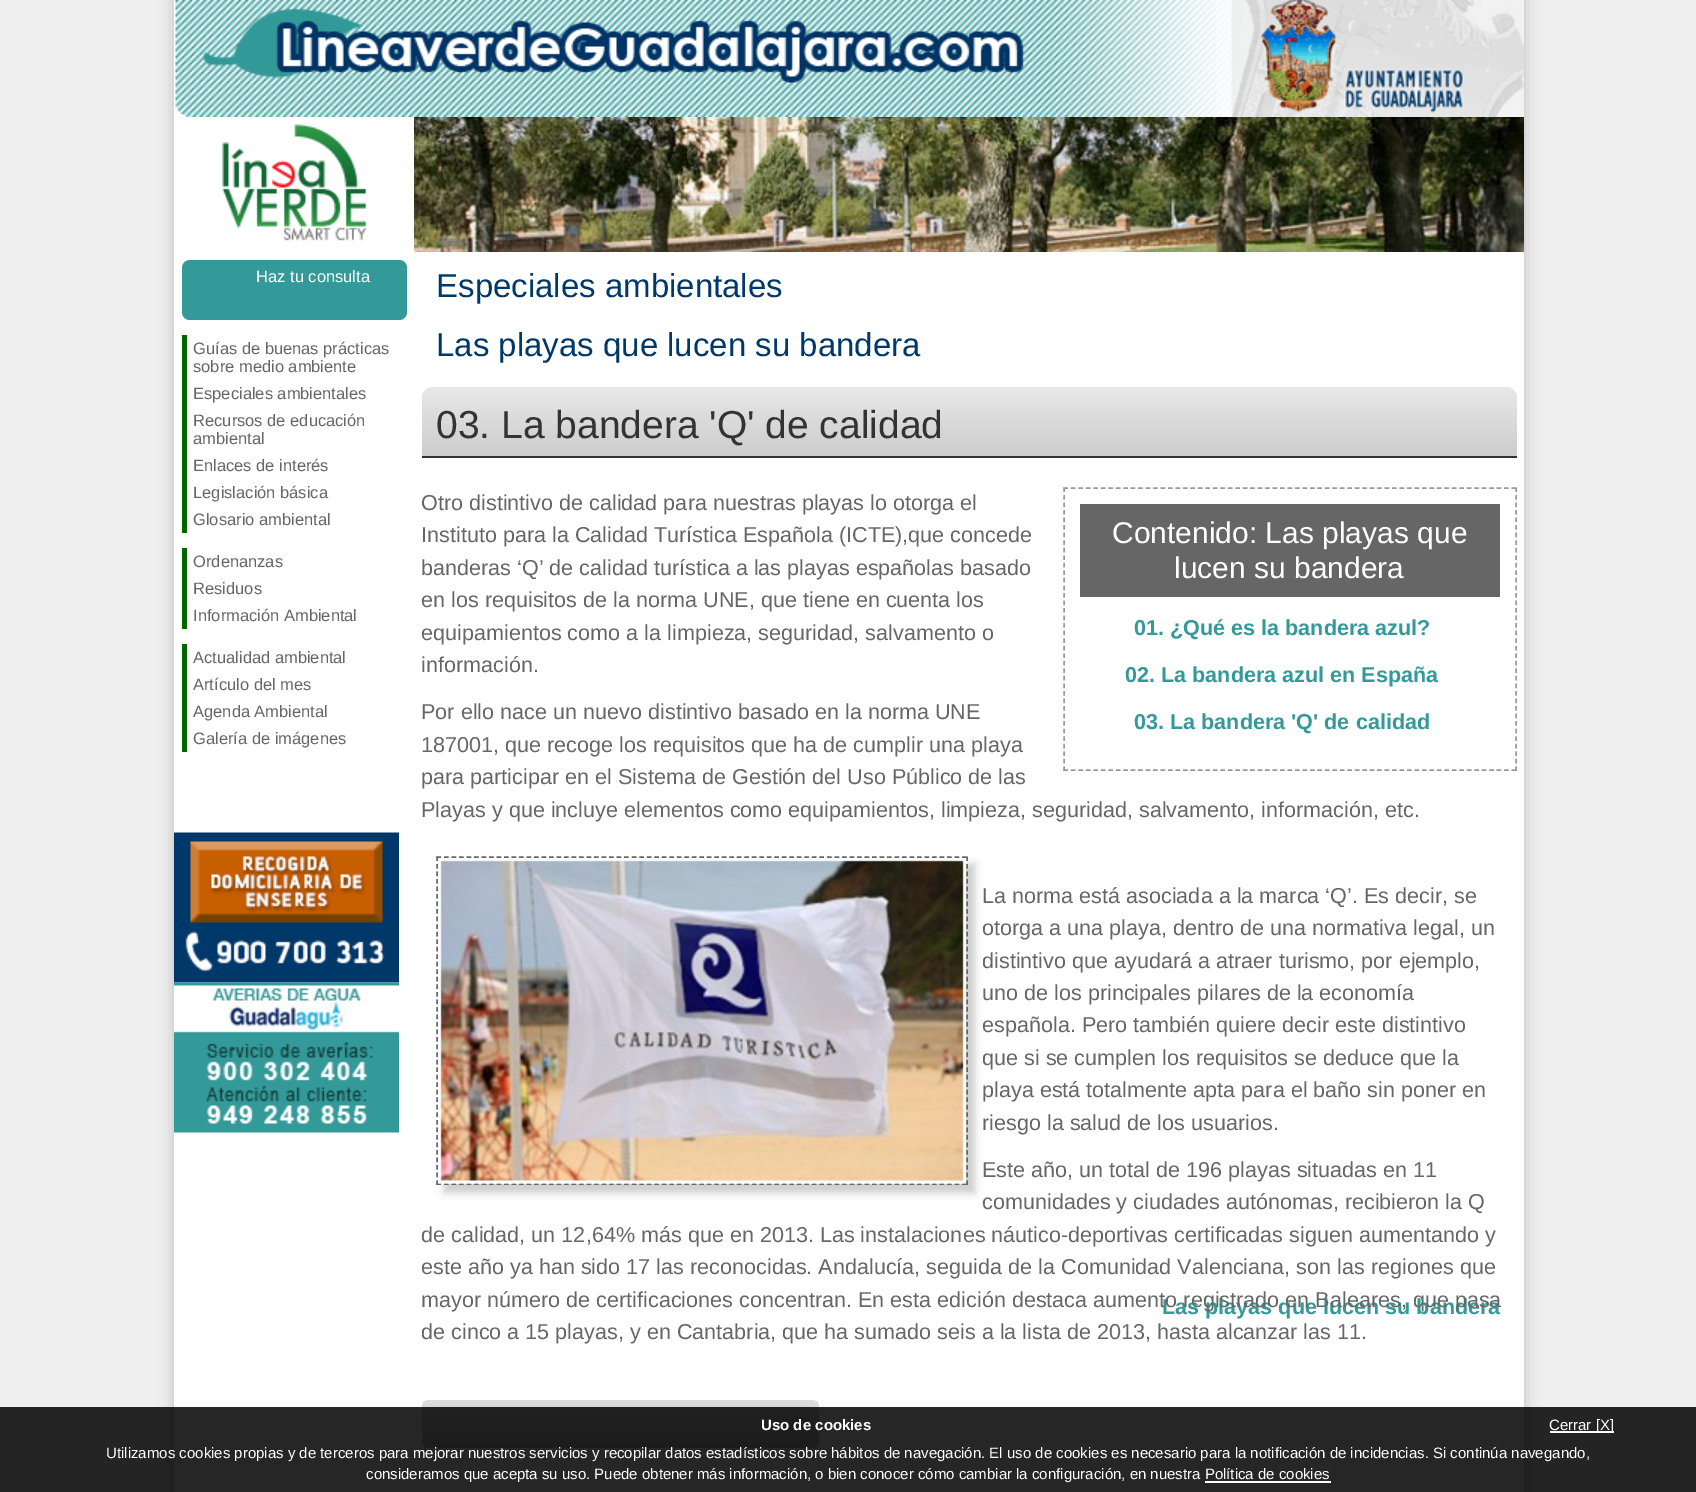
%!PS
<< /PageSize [1696 1492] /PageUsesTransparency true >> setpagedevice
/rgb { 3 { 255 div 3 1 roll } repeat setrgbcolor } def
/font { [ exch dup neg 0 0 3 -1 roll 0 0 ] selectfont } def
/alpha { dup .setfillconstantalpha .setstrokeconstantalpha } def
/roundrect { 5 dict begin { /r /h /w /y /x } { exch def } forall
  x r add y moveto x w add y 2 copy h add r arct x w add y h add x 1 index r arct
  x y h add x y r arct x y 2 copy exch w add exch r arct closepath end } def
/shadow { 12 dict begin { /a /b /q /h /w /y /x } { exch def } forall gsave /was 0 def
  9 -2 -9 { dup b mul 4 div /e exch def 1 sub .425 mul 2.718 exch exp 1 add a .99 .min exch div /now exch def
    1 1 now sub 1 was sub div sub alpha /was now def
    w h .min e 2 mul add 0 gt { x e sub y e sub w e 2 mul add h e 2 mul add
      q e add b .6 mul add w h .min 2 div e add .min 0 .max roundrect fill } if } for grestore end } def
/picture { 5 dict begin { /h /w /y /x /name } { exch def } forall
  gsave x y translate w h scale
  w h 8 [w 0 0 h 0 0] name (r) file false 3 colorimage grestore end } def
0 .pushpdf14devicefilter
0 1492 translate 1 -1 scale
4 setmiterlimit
239 239 239 rgb
0 0 1696 1492 rectfill
0 0 0 rgb
174 -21 1350 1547 11 7.5 0.2 shadow
255 255 255 rgb
174 0 1350 1492 rectfill
(img/1.rgb) 175 0 1349 117 picture
(img/2.rgb) 222 124 145 117 picture
(img/3.rgb) 414 117 1110 135 picture
51 153 153 rgb
182 260 225 60 8 roundrect fill
[
  [182 335 5 198 0 102 0]
  [182 548 5 81 0 102 0]
  [182 644 5 108 0 102 0]
] { aload pop rgb rectfill } forall
(img/4.rgb) 174 832 225 151 picture
(img/5.rgb) 174 982 225 151 picture
gsave 434 387 moveto 1505 387 lineto 1511.5 387 1517 392.5 1517 399 curveto 1517 456 lineto 422 456 lineto 422 399 lineto 422 392.5 427.5 387 434 387 curveto closepath clip newpath
<< /ShadingType 2 /ColorSpace /DeviceRGB /Coords [969 387 969 456] /Extend [true true] /Function << /FunctionType 2 /Domain [0 1] /C0 [0.91 0.91 0.91] /C1 [0.8 0.8 0.8] /N 1 >> >> shfill grestore
51 51 51 rgb
422 456 1095 2 rectfill
153 153 153 rgb
1.5 setlinewidth
[4.5 2.97] 0 setdash
1063.5 488 moveto 1516.5 488 lineto stroke
[4.5 3.04] 0 setdash
1516 487.5 moveto 1516 771 lineto stroke
[4.5 2.97] 0 setdash
1063.5 770 moveto 1516.5 770 lineto stroke
[4.5 3.04] 0 setdash
1064 487.5 moveto 1064 771 lineto stroke
102 102 102 rgb
1080 504 420 93 rectfill
204 204 204 rgb
444 864 531 329 0 4 1 shadow
102 102 102 rgb
[4.5 3.01] 0 setdash
436.5 857 moveto 967.5 857 lineto stroke
[4.5 3.03] 0 setdash
967 856.5 moveto 967 1185 lineto stroke
[4.5 3.01] 0 setdash
436.5 1184 moveto 967.5 1184 lineto stroke
[4.5 3.03] 0 setdash
437 856.5 moveto 437 1185 lineto stroke
(img/6.rgb) 438 858 528 326 picture
gsave 422 1400 397 48 8 roundrect clip newpath
<< /ShadingType 2 /ColorSpace /DeviceRGB /Coords [620 1400 620 1448] /Extend [true true] /Function << /FunctionType 2 /Domain [0 1] /C0 [0.871 0.871 0.871] /C1 [0.737 0.737 0.737] /N 1 >> >> shfill grestore
0.85 alpha
[
  [0 1407 1696 85 0 0 0]
] { aload pop rgb rectfill } forall
1 alpha
[
  [1550 1431 64 2 255 255 255]
  [1205 1481 126 2 255 255 255]
] { aload pop rgb rectfill } forall
/LiberationSans-Regular 16.5 font
256 282 moveto (Haz tu consulta) show
102 102 102 rgb
[
  [(Guías de buenas prácticas) 193 354]
  [(sobre medio ambiente) 193 372]
  [(Especiales ambientales) 193 399]
  [(Recursos de educación) 193 426]
  [(ambiental) 193 444]
  [(Enlaces de interés) 193 471]
  [(Legislación básica) 193 498]
  [(Glosario ambiental) 193 525]
  [(Ordenanzas) 193 567]
  [(Residuos) 193 594]
  [(Información Ambiental) 193 621]
  [(Actualidad ambiental) 193 663]
  [(Artículo del mes) 193 690]
  [(Agenda Ambiental) 193 717]
  [(Galería de imágenes) 193 744]
] { aload pop moveto show } forall
/LiberationSans-Regular 33 font
0 56 106 rgb
436 297 moveto (Especiales ambientales) show
436 356 moveto (Las playas que lucen su bandera) show
/LiberationSans-Regular 39 font
51 51 51 rgb
436 438 moveto (03. La bandera 'Q' de calidad) show
/LiberationSans-Regular 21.6 font
102 102 102 rgb
[
  [(Otro distintivo de calidad para nuestras playas lo otorga el) 421 510]
  [(Instituto para la Calidad Turística Española \(ICTE\),que concede) 421 542]
  [(banderas ‘Q’ de calidad turística a las playas españolas basado) 421 575]
  [(en los requisitos de la norma UNE, que tiene en cuenta los) 421 607]
  [(equipamientos como a la limpieza, seguridad, salvamento o) 421 640]
  [(información.) 421 672]
] { aload pop moveto show } forall
/LiberationSans-Regular 30 font
255 255 255 rgb
1112 543 moveto (Contenido: Las playas que) show
1174 578 moveto (lucen su bandera) show
/LiberationSans-Bold 21.6 font
51 153 153 rgb
[
  [(01. ¿Qué es la bandera azul?) 1134 635]
  [(02. La bandera azul en España) 1125 682]
  [(03. La bandera 'Q' de calidad) 1134 729]
] { aload pop moveto show } forall
/LiberationSans-Regular 21.6 font
102 102 102 rgb
[
  [(Por ello nace un nuevo distintivo basado en la norma UNE) 421 719]
  [(187001, que recoge los requisitos que ha de cumplir una playa) 421 752]
  [(para participar en el Sistema de Gestión del Uso Público de las) 421 784]
  [(Playas y que incluye elementos como equipamientos, limpieza, seguridad, salvamento, información, etc.) 421 817]
  [(La norma está asociada a la marca ‘Q’. Es decir, se) 982 903]
  [(otorga a una playa, dentro de una normativa legal, un) 982 935]
  [(distintivo que ayudará a atraer turismo, por ejemplo,) 982 968]
  [(uno de los principales pilares de la economía) 982 1000]
  [(española. Pero también quiere decir este distintivo) 982 1032]
  [(que si se cumplen los requisitos se deduce que la) 982 1065]
  [(playa está totalmente apta para el baño sin poner en) 982 1097]
  [(riesgo la salud de los usuarios.) 982 1130]
  [(Este año, un total de 196 playas situadas en 11) 982 1177]
  [(comunidades y ciudades autónomas, recibieron la Q) 982 1209]
  [(de calidad, un 12,64% más que en 2013. Las instalaciones náutico-deportivas certificadas siguen aumentando y) 421 1242]
  [(este año ya han sido 17 las reconocidas. Andalucía, seguida de la Comunidad Valenciana, son las regiones que) 421 1274]
  [(de cinco a 15 playas, y en Cantabria, que ha sumado seis a la lista de 2013, hasta alcanzar las 11.) 421 1339]
] { aload pop moveto show } forall
/LiberationSans-Bold 21.6 font
51 153 153 rgb
1162 1314 moveto (Las playas que lucen su bandera) show
/LiberationSans-Regular 21.6 font
102 102 102 rgb
421 1307 moveto (mayor número de certificaciones concentran. En esta edición destaca aumento registrado en Baleares, que pasa) show
/LiberationSans-Bold 15 font
255 255 255 rgb
761 1430 moveto (Uso de cookies) show
/LiberationSans-Regular 15 font
[
  [(Cerrar [X]) 1549 1430]
  [(Utilizamos cookies propias y de terceros para mejorar nuestros servicios y recopilar datos estadísticos sobre hábitos de navegación. El uso de cookies es necesario para la notificación de incidencias. Si continúa navegando,) 106 1458]
  [(consideramos que acepta su uso. Puede obtener más información, o bien conocer cómo cambiar la configuración, en nuestra Política de cookies) 366 1479]
] { aload pop moveto show } forall
.poppdf14devicefilter showpage
